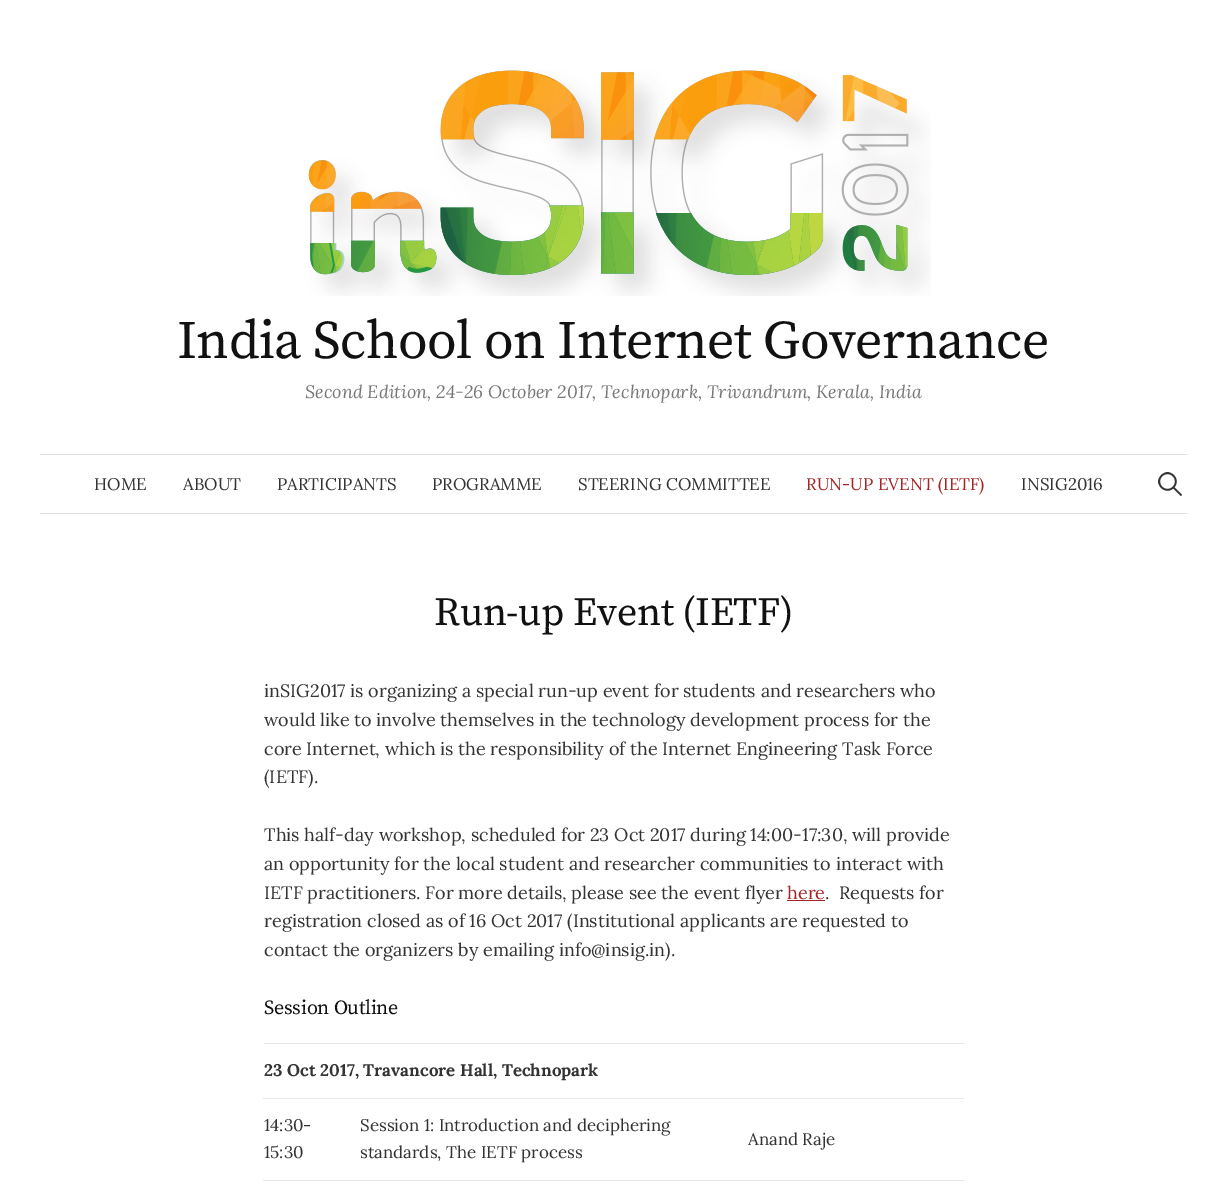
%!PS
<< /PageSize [1227 1201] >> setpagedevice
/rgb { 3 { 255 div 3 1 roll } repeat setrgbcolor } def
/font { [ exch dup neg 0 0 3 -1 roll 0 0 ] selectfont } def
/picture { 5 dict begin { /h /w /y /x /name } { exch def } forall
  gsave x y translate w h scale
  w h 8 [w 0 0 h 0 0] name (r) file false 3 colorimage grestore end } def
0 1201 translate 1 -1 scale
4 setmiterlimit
255 255 255 rgb
0 0 1227 1201 rectfill
(img/1.rgb) 307 69 624 227 picture
221 221 221 rgb
40 454 1147 1 rectfill
40 513 1147 1 rectfill
(img/2.rgb) 1158 472 24 24 picture
[
  [787 900 38 1 166 36 37]
  [264 1043 700 1 230 230 230]
  [263 1098 701 1 230 230 230]
  [263 1180 701 1 230 230 230]
] { aload pop rgb rectfill } forall
/SourceSerifPro-Regular 54 font
17 17 17 rgb
177 358 moveto -0.55 0 (India School on Internet Governance) ashow
/Lora-Italic 18 font
119 119 119 rgb
305 398 moveto (Second Edition, 24-26 October 2017, Technopark, Trivandrum, Kerala, India) show
/Lora-Regular 16.9 font
51 51 51 rgb
[
  [(HOME) 94 490]
  [(ABOUT) 183 490]
  [(PARTICIPANTS) 277 490]
  [(PROGRAMME) 432 490]
  [(STEERING COMMITTEE) 578 490]
] { aload pop moveto show } forall
166 36 37 rgb
806 490 moveto (RUN-UP EVENT \(IETF\)) show
51 51 51 rgb
1021 490 moveto (INSIG2016) show
/SourceSerifPro-Regular 40 font
17 17 17 rgb
434 625 moveto -0.4 0 (Run-up Event \(IETF\)) ashow
/Lora-Regular 18 font
51 51 51 rgb
[
  [(inSIG2017 is organizing a special run-up event for students and researchers who) 264 697]
  [(would like to involve themselves in the technology development process for the) 264 726]
  [(core Internet, which is the responsibility of the Internet Engineering Task Force) 264 755]
  [(\(IETF\).) 264 783]
  [(This half-day workshop, scheduled for 23 Oct 2017 during 14:00-17:30, will provide) 264 841]
  [(an opportunity for the local student and researcher communities to interact with) 264 870]
  [(IETF practitioners. For more details, please see the event flyer) 264 899]
] { aload pop moveto show } forall
166 36 37 rgb
787 899 moveto (here) show
51 51 51 rgb
[
  [(.  Requests for) 825 899]
  [(registration closed as of 16 Oct 2017 \(Institutional applicants are requested to) 264 927]
  [(contact the organizers by emailing info@insig.in\).) 264 956]
] { aload pop moveto show } forall
/SourceSerifPro-Regular 20 font
17 17 17 rgb
264 1014 moveto -0.25 0 (Session Outline) ashow
/Lora-Bold 16.9 font
51 51 51 rgb
264 1076 moveto (23 Oct 2017, Travancore Hall, Technopark) show
/Lora-Regular 16.9 font
[
  [(14:30-) 264 1131]
  [(15:30) 264 1158]
  [(Session 1: Introduction and deciphering) 360 1131]
  [(standards, The IETF process) 360 1158]
  [(Anand Raje) 748 1145]
] { aload pop moveto show } forall
showpage
